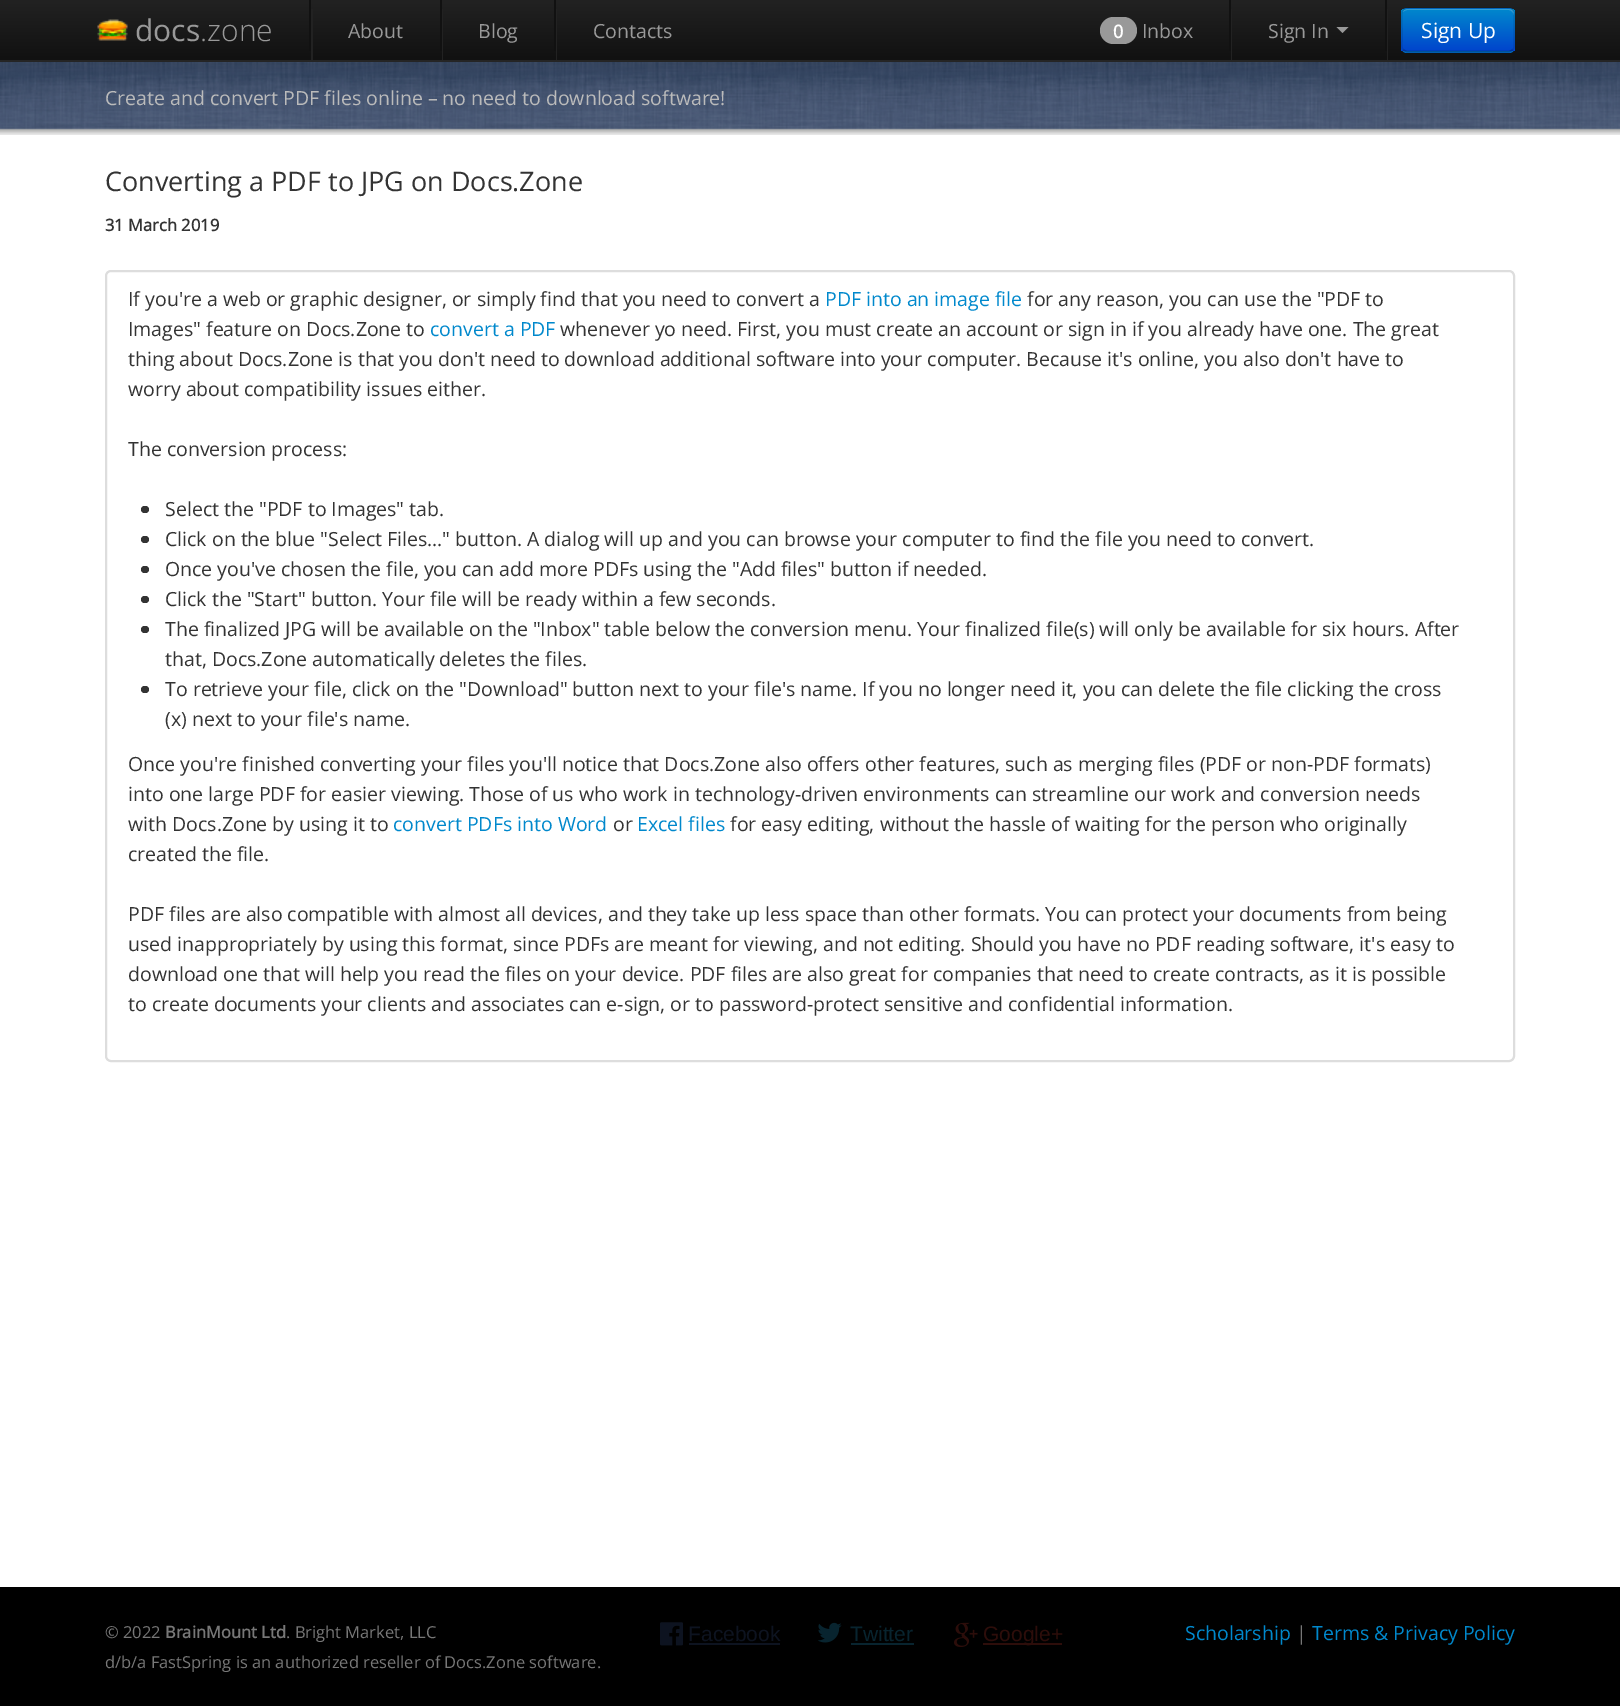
%!PS
<< /PageSize [1620 1706] /PageUsesTransparency true >> setpagedevice
/rgb { 3 { 255 div 3 1 roll } repeat setrgbcolor } def
/font { [ exch dup neg 0 0 3 -1 roll 0 0 ] selectfont } def
/alpha { dup .setfillconstantalpha .setstrokeconstantalpha } def
/roundrect { 5 dict begin { /r /h /w /y /x } { exch def } forall
  x r add y moveto x w add y 2 copy h add r arct x w add y h add x 1 index r arct
  x y h add x y r arct x y 2 copy exch w add exch r arct closepath end } def
/shadow { 12 dict begin { /a /b /q /h /w /y /x } { exch def } forall gsave /was 0 def
  9 -2 -9 { dup b mul 4 div /e exch def 1 sub .425 mul 2.718 exch exp 1 add a .99 .min exch div /now exch def
    1 1 now sub 1 was sub div sub alpha /was now def
    w h .min e 2 mul add 0 gt { x e sub y e sub w e 2 mul add h e 2 mul add
      q e add b .6 mul add w h .min 2 div e add .min 0 .max roundrect fill } if } for grestore end } def
/picture { 5 dict begin { /h /w /y /x /name } { exch def } forall
  gsave x y translate w h scale
  w h 8 [w 0 0 h 0 0] name (r) file false 3 colorimage grestore end } def
0 .pushpdf14devicefilter
0 1706 translate 1 -1 scale
4 setmiterlimit
255 255 255 rgb
0 0 1620 1706 rectfill
(img/2.rgb) 0 62 1620 73 picture
0 0 0 rgb
0 2 1620 61 0 7.5 0.1 shadow
gsave 0 0 moveto 1620 0 lineto 1620 60 lineto 0 60 lineto closepath clip newpath
<< /ShadingType 2 /ColorSpace /DeviceRGB /Coords [810 0 810 60] /Extend [true true] /Function << /FunctionType 2 /Domain [0 1] /C0 [0.133 0.133 0.133] /C1 [0.067 0.067 0.067] /N 1 >> >> shfill grestore
37 37 37 rgb
0 60 1620 2 rectfill
(img/1.rgb) 97 19 31 22 picture
[
  [311 9 2 51 34 34 34]
  [309 0 2 51 17 17 17]
  [442 9 1 51 34 34 34]
  [440 0 2 51 17 17 17]
  [556 9 1 51 34 34 34]
  [554 0 2 51 17 17 17]
] { aload pop rgb rectfill } forall
153 153 153 rgb
1100 17 37 27 13.5 roundrect fill
34 34 34 rgb
1231 9 1 51 rectfill
17 17 17 rgb
1229 0 2 51 rectfill
153 153 153 rgb
1336.5 27 moveto 1348.5 27 lineto 1342.5 33 lineto closepath fill
34 34 34 rgb
1387 9 1 51 rectfill
17 17 17 rgb
1385 0 2 51 rectfill
0 109 204 rgb
1401 8 114 45 6 roundrect fill
gsave
1401 8 114 45 6 roundrect clip newpath
gsave 1401 9 moveto 1515 9 lineto 1515 51 lineto 1401 51 lineto closepath clip newpath
<< /ShadingType 2 /ColorSpace /DeviceRGB /Coords [1458 9 1458 51] /Extend [true true] /Function << /FunctionType 2 /Domain [0 1] /C0 [0 0.533 0.8] /C1 [0 0.267 0.8] /N 1 >> >> shfill grestore
grestore
0.2 alpha
255 255 255 rgb
1407 10 moveto 1509 10 lineto 1511 10 1514 13 1514 15 curveto 1514 14 lineto 1514 11 1512 9 1509 9 curveto 1408 9 lineto 1406 9 1404 10 1403 12 curveto 1404 11 1406 10 1407 10 curveto closepath fill
0.25 alpha
0 0 0 rgb
1.5 setlinewidth
1512.5 50 moveto 1509.5 51.5 lineto 1406.5 51.5 lineto 1403.5 50 lineto stroke
0.1 alpha
1403.5 50 moveto 1401 48 1402 44 1402 41 curveto 1402 30 lineto 1402 5 1398 8 1424 8 curveto 1492 8 lineto 1518 8 1514 5 1514 30 curveto 1514 41 lineto 1514 44 1515 48 1512.5 50 curveto stroke
1 alpha
221 221 221 rgb
2 setlinewidth
106 271 1408 790 5 roundrect stroke
51 51 51 rgb
141 506 8 7 3.5 roundrect fill
141 536 8 7 3.5 roundrect fill
141 566 8 7 3.5 roundrect fill
141 596 8 7 3.5 roundrect fill
141 626 8 7 3.5 roundrect fill
141 686 8 7 3.5 roundrect fill
0 0 0 rgb
0 1587 1620 119 rectfill
(img/3.rgb) 660 1622 23 24 picture
13 19 32 rgb
689 1643 91 2 rectfill
(img/4.rgb) 818 1622 24 21 picture
8 36 47 rgb
851 1643 63 2 rectfill
(img/5.rgb) 954 1622 24 25 picture
45 13 10 rgb
983 1643 79 2 rectfill
/OpenSans-Regular 30 font
153 153 153 rgb
135 41 moveto (docs) show
/OpenSans-Light 30 font
200 41 moveto (.zone) show
/OpenSans-Regular 19.5 font
[
  [(About) 348 38]
  [(Blog) 478 38]
  [(Contacts) 593 38]
] { aload pop moveto show } forall
/OpenSans-Bold 18 font
255 255 255 rgb
1113 38 moveto (0) show
/OpenSans-Regular 19.5 font
153 153 153 rgb
1142 38 moveto (Inbox) show
1268 38 moveto (Sign In) show
/OpenSans-Regular 21 font
255 255 255 rgb
1421 38 moveto (Sign Up) show
/OpenSans-Regular 19.5 font
187 187 187 rgb
105 105 moveto (Create and convert PDF files online – no need to download software!) show
/OpenSans-Regular 27 font
51 51 51 rgb
105 191 moveto (Converting a PDF to JPG on Docs.Zone) show
/OpenSans-Bold 16.5 font
105 231 moveto (31 March 2019) show
/OpenSans-Regular 19.5 font
128 306 moveto (If you're a web or graphic designer, or simply find that you need to convert a) show
0 136 204 rgb
825 306 moveto (PDF into an image file) show
51 51 51 rgb
1027 306 moveto (for any reason, you can use the "PDF to) show
128 336 moveto (Images" feature on Docs.Zone to) show
0 136 204 rgb
430 336 moveto (convert a PDF) show
51 51 51 rgb
[
  [(whenever yo need. First, you must create an account or sign in if you already have one. The great) 560 336]
  [(thing about Docs.Zone is that you don't need to download additional software into your computer. Because it's online, you also don't have to) 128 366]
  [(worry about compatibility issues either.) 128 396]
  [(The conversion process:) 128 456]
  [(Select the "PDF to Images" tab.) 165 516]
  [(Click on the blue "Select Files..." button. A dialog will up and you can browse your computer to find the file you need to convert.) 165 546]
  [(Once you've chosen the file, you can add more PDFs using the "Add files" button if needed.) 165 576]
  [(Click the "Start" button. Your file will be ready within a few seconds.) 165 606]
  [(The finalized JPG will be available on the "Inbox" table below the conversion menu. Your finalized file\(s\) will only be available for six hours. After) 165 636]
  [(that, Docs.Zone automatically deletes the files.) 165 666]
  [(To retrieve your file, click on the "Download" button next to your file's name. If you no longer need it, you can delete the file clicking the cross) 165 696]
  [(\(x\) next to your file's name.) 165 726]
  [(Once you're finished converting your files you'll notice that Docs.Zone also offers other features, such as merging files \(PDF or non-PDF formats\)) 128 771]
  [(into one large PDF for easier viewing. Those of us who work in technology-driven environments can streamline our work and conversion needs) 128 801]
  [(with Docs.Zone by using it to) 128 831]
] { aload pop moveto show } forall
0 136 204 rgb
393 831 moveto (convert PDFs into Word) show
51 51 51 rgb
613 831 moveto (or) show
0 136 204 rgb
637 831 moveto (Excel files) show
51 51 51 rgb
[
  [(for easy editing, without the hassle of waiting for the person who originally) 730 831]
  [(created the file.) 128 861]
  [(PDF files are also compatible with almost all devices, and they take up less space than other formats. You can protect your documents from being) 128 921]
  [(used inappropriately by using this format, since PDFs are meant for viewing, and not editing. Should you have no PDF reading software, it's easy to) 128 951]
  [(download one that will help you read the files on your device. PDF files are also great for companies that need to create contracts, as it is possible) 128 981]
  [(to create documents your clients and associates can e-sign, or to password-protect sensitive and confidential information.) 128 1011]
] { aload pop moveto show } forall
/OpenSans-Regular 16.5 font
119 119 119 rgb
105 1638 moveto (© 2022) show
/OpenSans-Bold 16.5 font
165 1638 moveto (BrainMount Ltd) show
/OpenSans-Regular 16.5 font
286 1638 moveto (. Bright Market, LLC) show
105 1668 moveto (d/b/a FastSpring is an authorized reseller of Docs.Zone software.) show
/LiberationSans-Regular 21 font
13 19 32 rgb
688 1641 moveto (Facebook) show
8 36 47 rgb
850 1641 moveto (Twitter) show
45 13 10 rgb
983 1641 moveto (Google+) show
/OpenSans-Regular 19.5 font
0 136 204 rgb
1185 1640 moveto (Scholarship) show
119 119 119 rgb
1296 1640 moveto (|) show
0 136 204 rgb
1312 1640 moveto (Terms & Privacy Policy) show
.poppdf14devicefilter showpage
